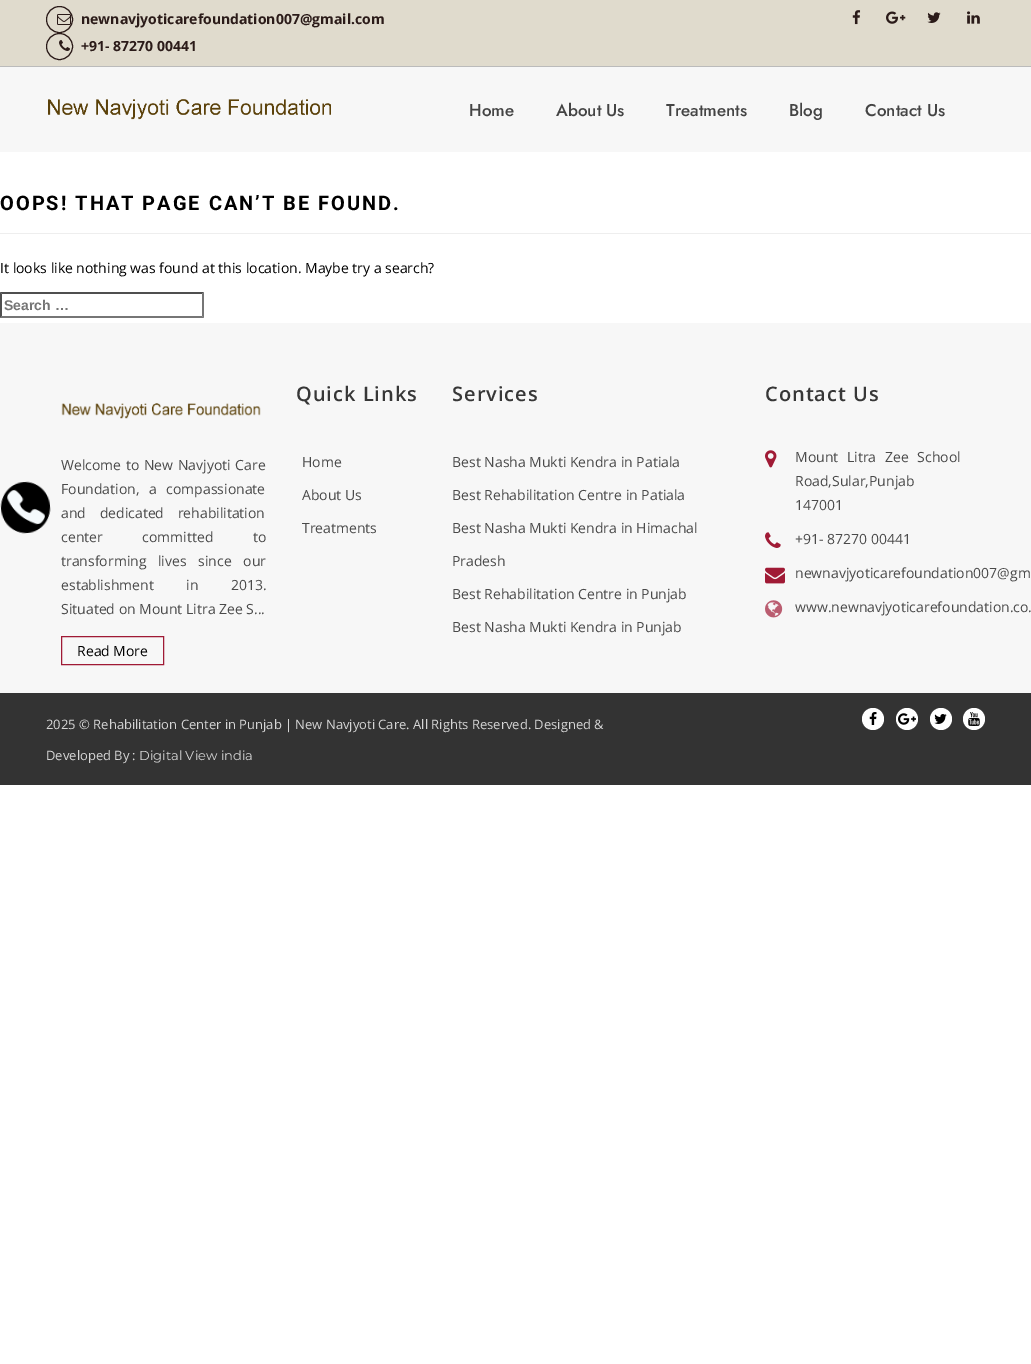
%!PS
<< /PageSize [1031 1364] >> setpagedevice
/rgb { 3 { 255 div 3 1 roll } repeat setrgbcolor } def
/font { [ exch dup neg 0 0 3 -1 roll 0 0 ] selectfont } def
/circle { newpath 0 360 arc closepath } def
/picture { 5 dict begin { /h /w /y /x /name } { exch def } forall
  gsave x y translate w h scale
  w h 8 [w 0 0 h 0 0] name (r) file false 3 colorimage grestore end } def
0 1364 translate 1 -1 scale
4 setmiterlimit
255 255 255 rgb
0 0 1031 1364 rectfill
224 219 205 rgb
0 0 1031 66 rectfill
187 187 187 rgb
0 66 1031 1 rectfill
43 27 25 rgb
59.5 19.5 13 circle stroke
(img/1.rgb) 57 14 14 11 picture
59.5 46.5 13 circle stroke
(img/2.rgb) 59 40 11 11 picture
(img/3.rgb) 852 10 9 15 picture
(img/4.rgb) 886 11 20 13 picture
(img/5.rgb) 927 12 14 11 picture
(img/6.rgb) 967 11 13 13 picture
247 247 247 rgb
0 67 1031 85 rectfill
(img/7.rgb) 48 99 283 21 picture
238 238 238 rgb
0 233 1031 1 rectfill
79 79 79 rgb
0 292 moveto 204 292 lineto 202 294 lineto 2 294 lineto closepath fill
118 118 118 rgb
204 292 moveto 204 318 lineto 202 316 lineto 202 294 lineto closepath fill
204 318 moveto 0 318 lineto 2 316 lineto 202 316 lineto closepath fill
79 79 79 rgb
0 318 moveto 0 292 lineto 2 294 lineto 2 316 lineto closepath fill
247 247 247 rgb
0 323 1031 370 rectfill
(img/8.rgb) 0 481 51 53 picture
(img/9.rgb) 61 403 200 16 picture
160 26 53 rgb
61.5 636.5 102 28 rectstroke
(img/10.rgb) 765 450 12 18 picture
(img/11.rgb) 765 532 16 16 picture
(img/12.rgb) 765 567 20 17 picture
(img/13.rgb) 765 600 18 18 picture
51 51 51 rgb
0 693 1031 92 rectfill
255 255 255 rgb
873 719 11 circle fill
(img/14.rgb) 869 712 8 13 picture
907 719 11 circle fill
(img/15.rgb) 898 713 18 12 picture
941 719 11 circle fill
(img/16.rgb) 934 714 13 10 picture
974 719 11 circle fill
(img/17.rgb) 968 712 12 14 picture
/OpenSans-Bold 14 font
43 27 25 rgb
81 24 moveto (newnavjyoticarefoundation007@gmail.com) show
81 51 moveto (+91- 87270 00441) show
/Jost-Medium 17 font
68 68 68 rgb
[
  [(Home) 469 116]
  [(About Us) 556 116]
  [(Treatments) 666 116]
  [(Blog) 789 116]
  [(Contact Us) 865 116]
] { aload pop moveto show } forall
/Roboto-Bold 20 font
0 0 0 rgb
0 210 moveto 2 0 (OOPS! THAT PAGE CAN’T BE FOUND.) ashow
/OpenSans-Regular 14 font
0 273 moveto (It looks like nothing was found at this location. Maybe try a search?) show
/LiberationSans-Bold 14 font
117 117 117 rgb
4 310 moveto (Search …) show
/OpenSans-Regular 14 font
74 74 74 rgb
61 470 moveto 1 0 32 (Welcome to New Navjyoti Care) widthshow
61 494 moveto 6 0 32 (Foundation, a compassionate) widthshow
61 518 moveto 10 0 32 (and dedicated rehabilitation) widthshow
61 542 moveto 36 0 32 (center committed to) widthshow
61 566 moveto 8 0 32 (transforming lives since our) widthshow
61 590 moveto 29 0 32 (establishment in 2013.) widthshow
61 614 moveto (Situated on Mount Litra Zee S...) show
0 0 0 rgb
77 656 moveto (Read More) show
/OpenSans-SemiBold 20 font
55 55 55 rgb
296 401 moveto 1 0 (Quick Links) ashow
/OpenSans-Regular 14 font
74 74 74 rgb
[
  [(Home) 302 467]
  [(About Us) 302 500]
  [(Treatments) 302 533]
] { aload pop moveto show } forall
/OpenSans-SemiBold 20 font
55 55 55 rgb
452 401 moveto 1 0 (Services) ashow
/OpenSans-Regular 14 font
74 74 74 rgb
[
  [(Best Nasha Mukti Kendra in Patiala) 452 467]
  [(Best Rehabilitation Centre in Patiala) 452 500]
  [(Best Nasha Mukti Kendra in Himachal) 452 533]
  [(Pradesh) 452 566]
  [(Best Rehabilitation Centre in Punjab) 452 599]
  [(Best Nasha Mukti Kendra in Punjab) 452 632]
] { aload pop moveto show } forall
/OpenSans-SemiBold 20 font
55 55 55 rgb
765 401 moveto 1 0 (Contact Us) ashow
/OpenSans-Regular 14 font
74 74 74 rgb
795 462 moveto 5 0 32 (Mount Litra Zee School) widthshow
[
  [(Road,Sular,Punjab) 795 486]
  [(147001) 795 510]
  [(+91- 87270 00441) 795 544]
  [(newnavjyoticarefoundation007@gm) 795 578]
  [(www.newnavjyoticarefoundation.co.) 795 612]
] { aload pop moveto show } forall
/OpenSans-Regular 13 font
214 214 214 rgb
46 729 moveto (2025 © Rehabilitation Center in Punjab | New Navjyoti Care. All Rights Reserved. Designed &) show
46 760 moveto (Developed By :) show
/Montserrat-Regular 13 font
139 760 moveto (Digital View india) show
showpage
